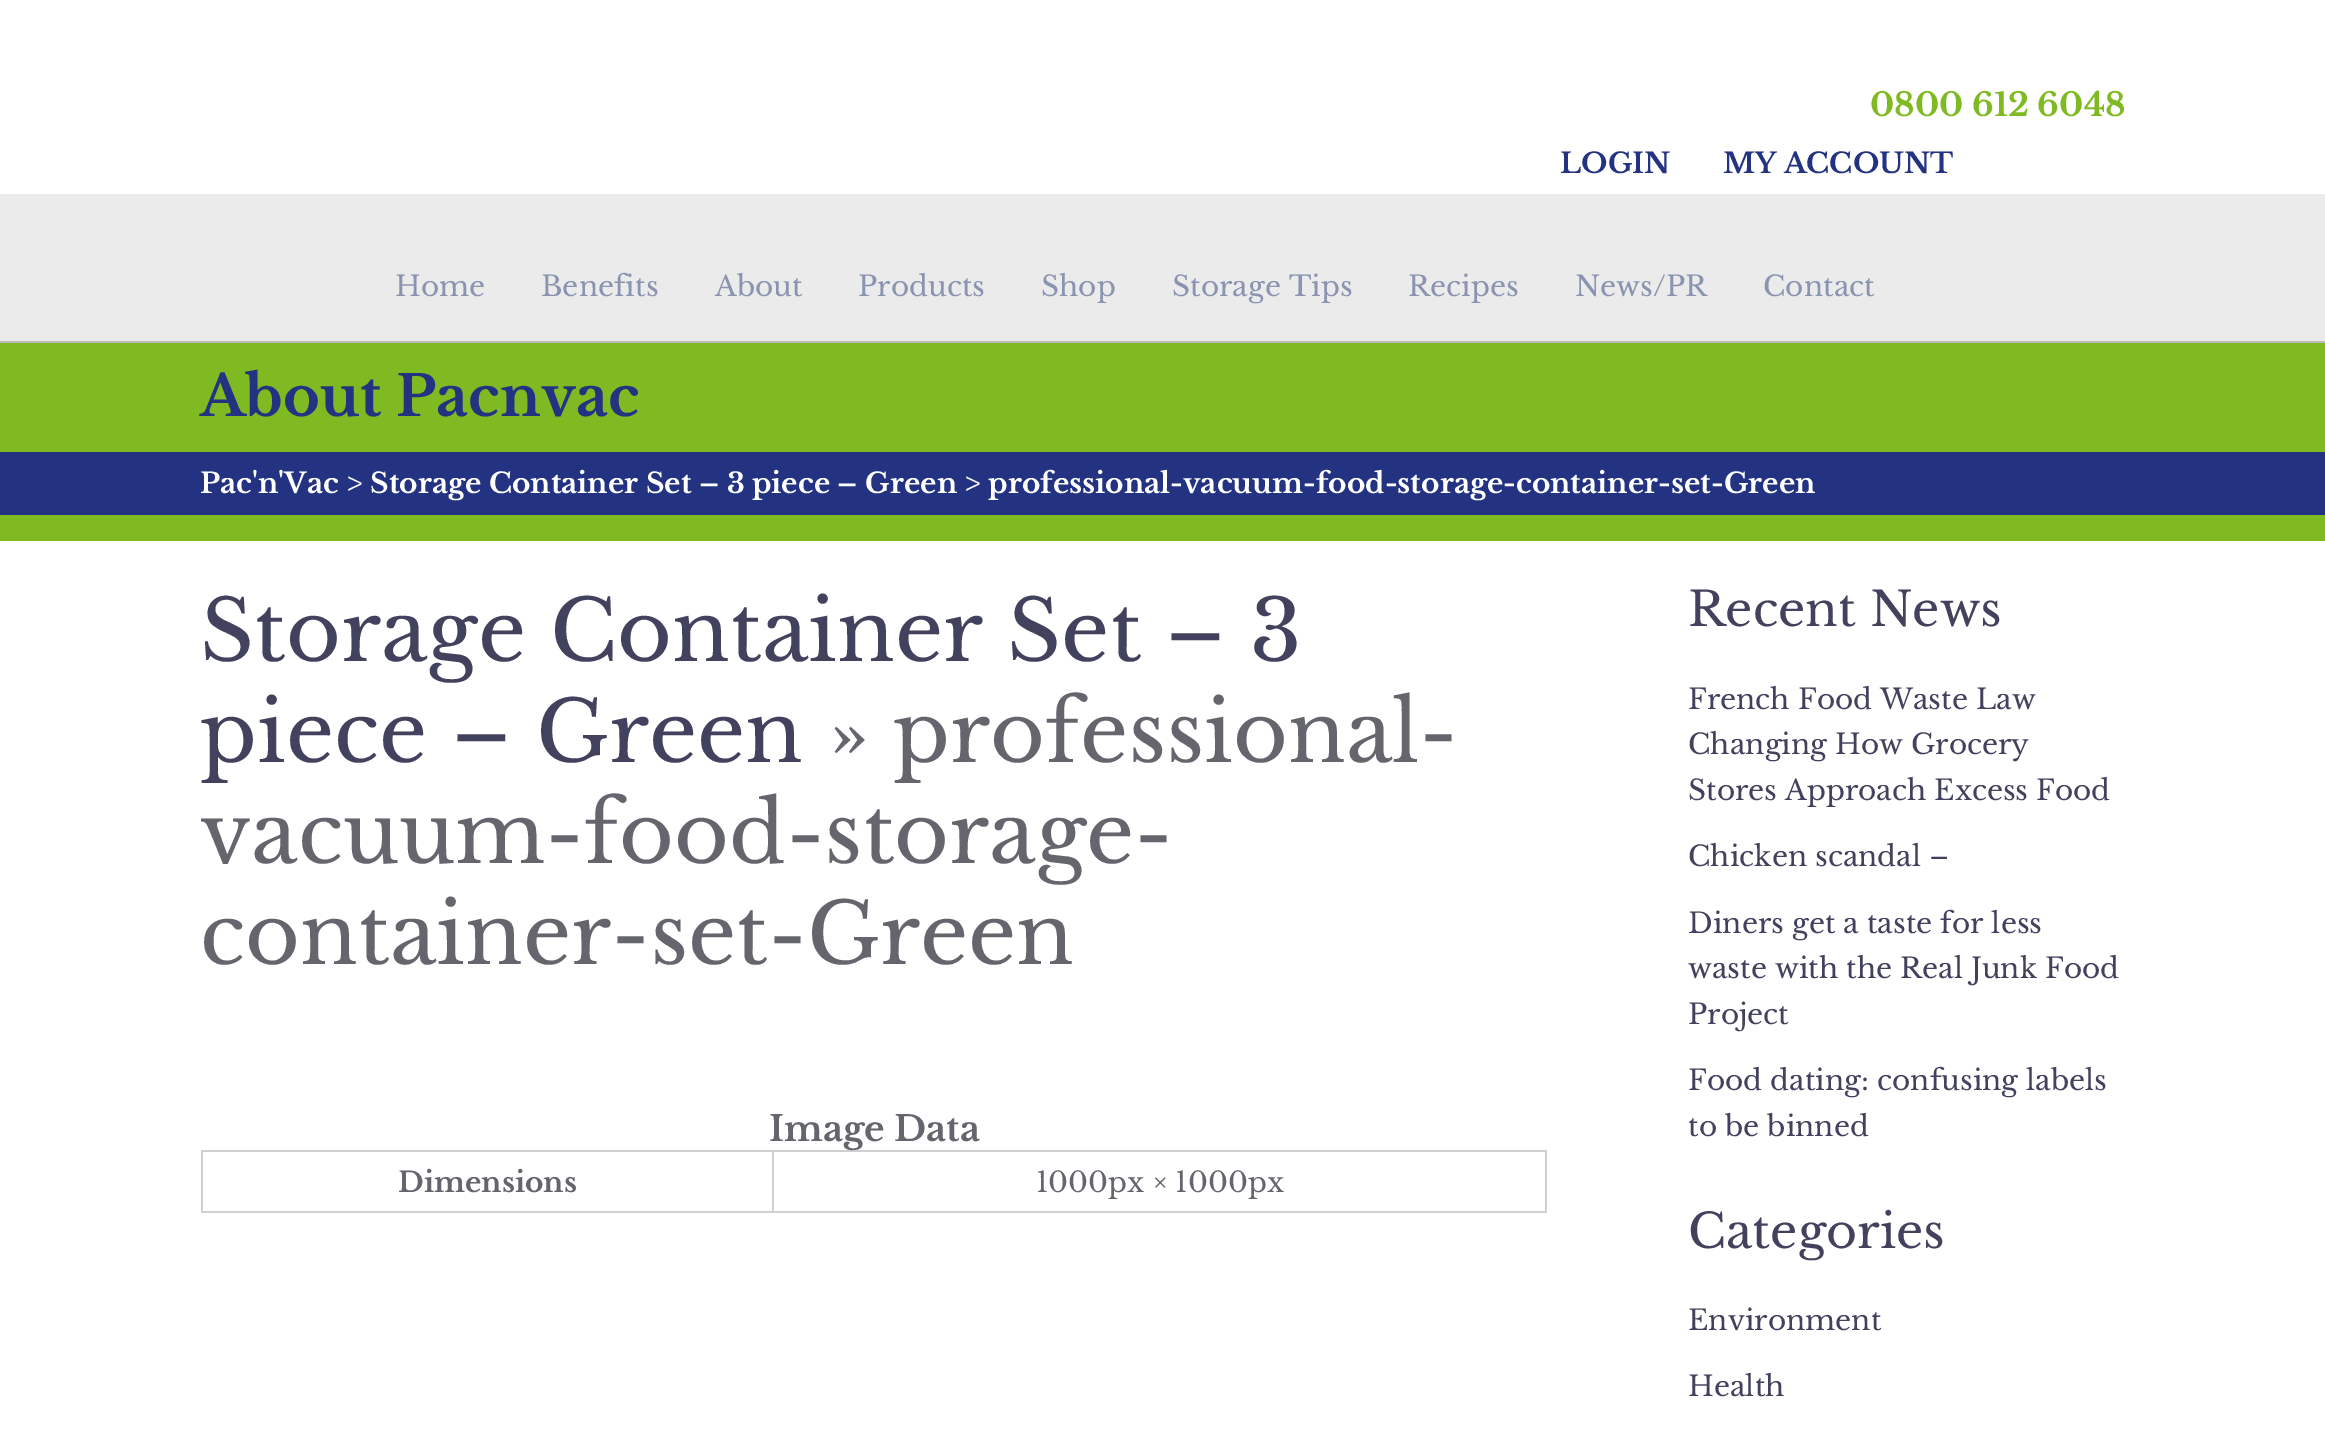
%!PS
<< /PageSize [2325 1434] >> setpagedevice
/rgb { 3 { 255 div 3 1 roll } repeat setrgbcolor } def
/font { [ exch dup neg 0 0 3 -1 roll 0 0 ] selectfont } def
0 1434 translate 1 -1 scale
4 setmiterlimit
235 235 235 rgb
0 0 2325 1434 rectfill
[
  [0 0 2325 194 255 255 255]
  [0 341 2325 2 188 188 188]
  [0 343 2325 109 127 186 34]
  [0 452 2325 63 35 51 129]
  [0 515 2325 26 127 186 34]
  [0 541 2325 893 255 255 255]
  [201 1150 1346 2 207 207 207]
  [1545 1150 2 63 207 207 207]
  [201 1211 1346 2 207 207 207]
  [201 1150 2 63 207 207 207]
  [772 1150 2 63 207 207 207]
] { aload pop rgb rectfill } forall
/LibreBaskerville-Bold 32.25 font
127 186 34 rgb
1870 116 moveto (0800 612 6048) show
/LibreBaskerville-Bold 28 font
35 51 129 rgb
1560 173 moveto (LOGIN) show
1723 173 moveto (MY ACCOUNT) show
/LibreBaskerville-Regular 28 font
138 148 177 rgb
[
  [(Home) 395 296]
  [(Benefits) 541 296]
  [(About) 715 296]
  [(Products) 858 296]
  [(Shop) 1041 296]
  [(Storage Tips) 1172 296]
  [(Recipes) 1408 296]
  [(News/PR) 1575 296]
  [(Contact) 1763 296]
] { aload pop moveto show } forall
/LibreBaskerville-Bold 56 font
35 51 129 rgb
200 416 moveto (About Pacnvac) show
/LibreBaskerville-Bold 28 font
255 255 255 rgb
200 493 moveto (Pac'n'Vac > Storage Container Set – 3 piece – Green > professional-vacuum-food-storage-container-set-Green) show
/LibreBaskerville-Regular 84 font
67 66 94 rgb
200 661 moveto (Storage Container Set – 3) show
200 762 moveto (piece – Green) show
101 101 109 rgb
828 762 moveto (» professional-) show
gsave
201 583 1346 630 rectclip
200 863 moveto (vacuum-food-storage-) show
grestore
200 964 moveto (container-set-Green) show
/LibreBaskerville-Bold 35 font
769 1141 moveto (Image Data) show
/LibreBaskerville-Bold 28 font
398 1192 moveto (Dimensions) show
/LibreBaskerville-Regular 28 font
1036 1192 moveto (1000px × 1000px) show
/LibreBaskerville-Regular 47.5 font
67 66 94 rgb
1688 626 moveto (Recent News) show
/LibreBaskerville-Regular 28 font
[
  [(French Food Waste Law) 1688 709]
  [(Changing How Grocery) 1688 754]
  [(Stores Approach Excess Food) 1688 800]
  [(Chicken scandal –) 1688 866]
  [(Diners get a taste for less) 1688 933]
  [(waste with the Real Junk Food) 1688 978]
  [(Project) 1688 1024]
  [(Food dating: confusing labels) 1688 1090]
  [(to be binned) 1688 1136]
] { aload pop moveto show } forall
/LibreBaskerville-Regular 47.5 font
1688 1248 moveto (Categories) show
/LibreBaskerville-Regular 28 font
1688 1330 moveto (Environment) show
1688 1396 moveto (Health) show
showpage
